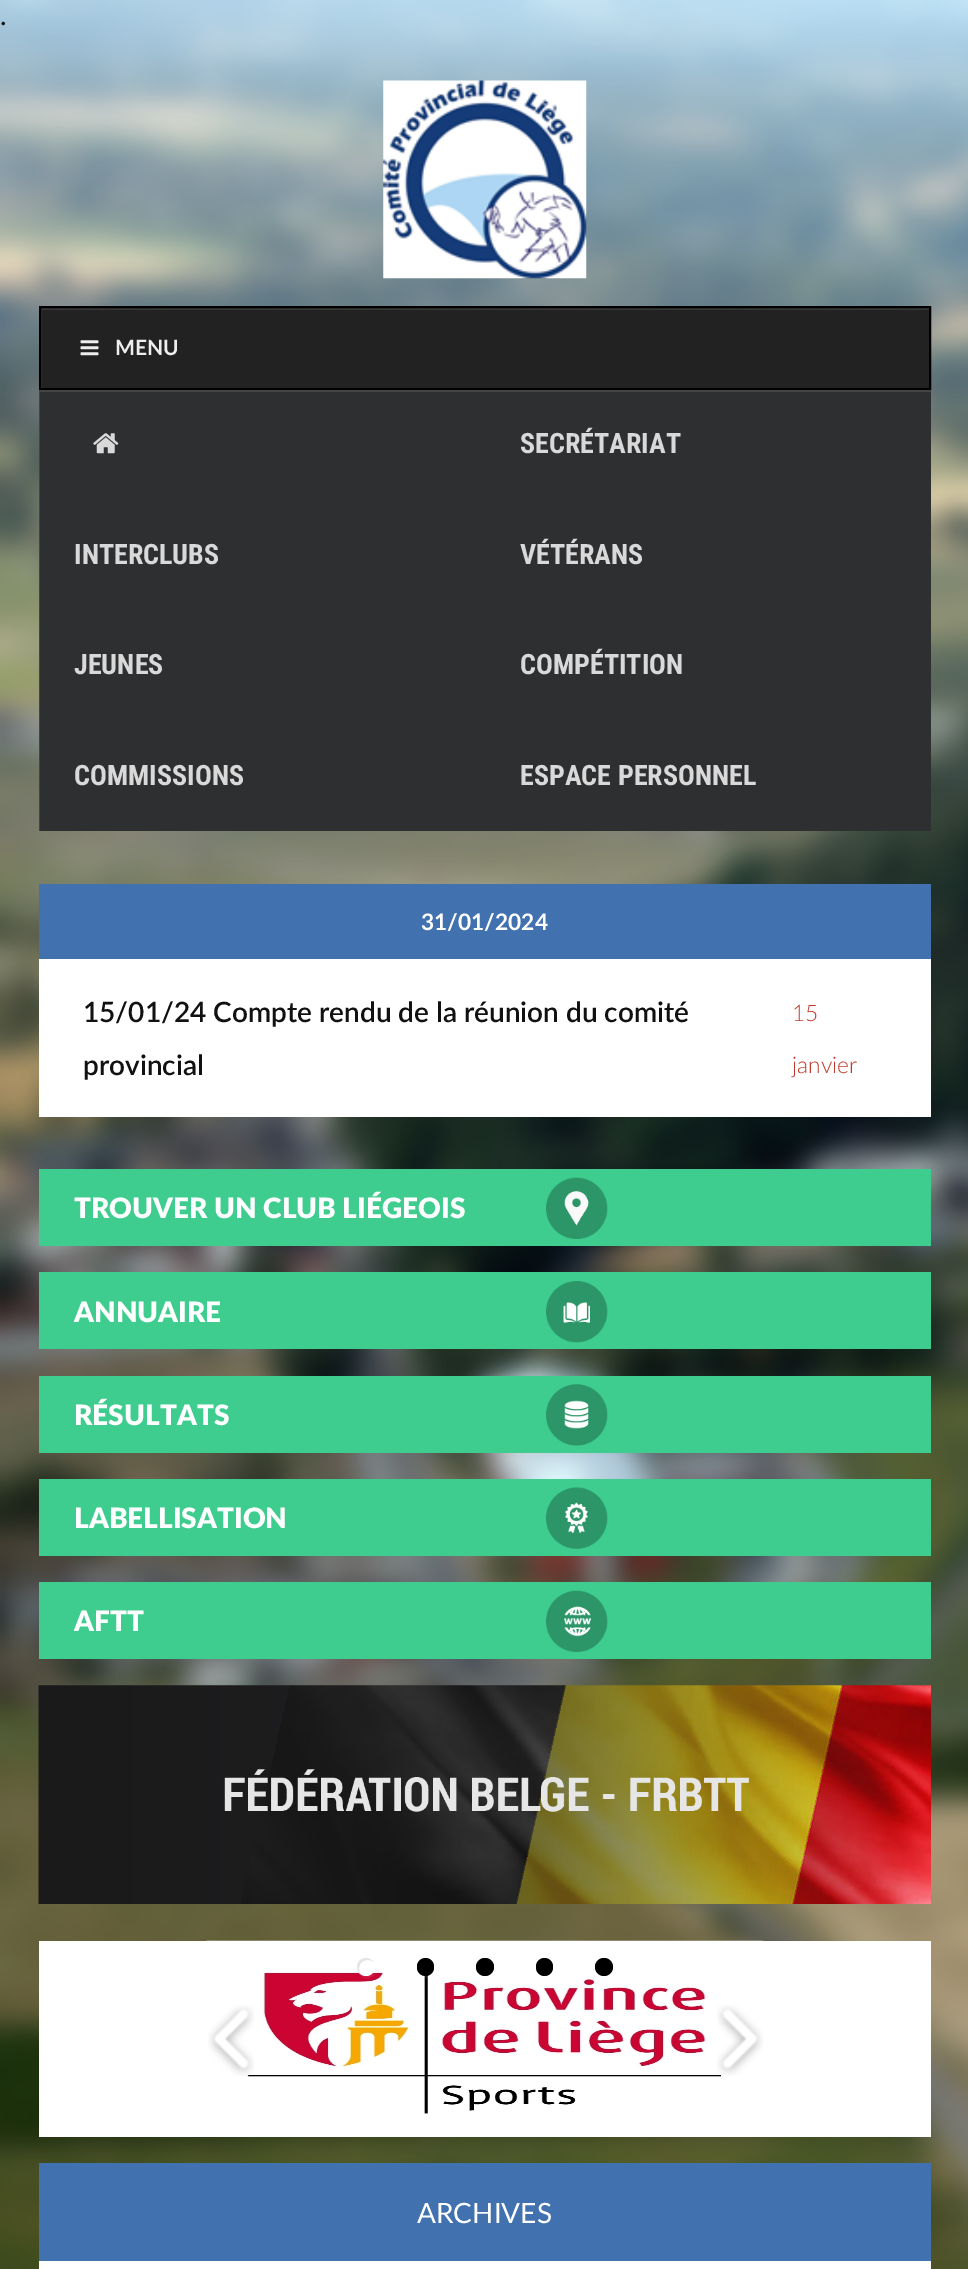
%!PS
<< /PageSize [968 2269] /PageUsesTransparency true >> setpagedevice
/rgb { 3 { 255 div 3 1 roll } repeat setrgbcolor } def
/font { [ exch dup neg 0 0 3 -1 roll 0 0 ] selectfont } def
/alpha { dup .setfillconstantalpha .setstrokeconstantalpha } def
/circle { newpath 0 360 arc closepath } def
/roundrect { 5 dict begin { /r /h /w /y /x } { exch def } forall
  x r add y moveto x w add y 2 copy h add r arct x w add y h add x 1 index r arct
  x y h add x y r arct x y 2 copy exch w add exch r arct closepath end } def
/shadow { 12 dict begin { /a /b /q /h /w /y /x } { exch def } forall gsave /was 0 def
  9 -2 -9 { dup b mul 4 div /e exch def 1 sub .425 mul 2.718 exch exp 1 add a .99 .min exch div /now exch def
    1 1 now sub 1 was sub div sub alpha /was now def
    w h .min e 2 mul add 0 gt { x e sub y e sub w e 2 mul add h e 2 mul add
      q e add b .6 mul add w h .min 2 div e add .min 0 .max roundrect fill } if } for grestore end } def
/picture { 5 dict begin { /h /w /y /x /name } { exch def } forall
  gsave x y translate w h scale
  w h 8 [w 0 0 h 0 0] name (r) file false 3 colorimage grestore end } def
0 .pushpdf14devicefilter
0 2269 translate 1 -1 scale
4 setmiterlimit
255 255 255 rgb
0 0 968 2269 rectfill
(img/1.rgb) 0 0 968 2269 picture
(img/2.rgb) 383 80 204 199 picture
34 34 34 rgb
42 310 887 78 rectfill
gsave
40 308 889 81 rectclip
56 56 56 rgb
-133 135 moveto 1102 135 lineto 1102 562 lineto -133 562 lineto closepath 42 310 moveto 931 310 lineto 931 390 lineto 42 390 lineto closepath eofill
grestore
0 0 0 rgb
2 setlinewidth
40 307 890 82 rectstroke
(img/3.rgb) 80 340 19 16 picture
46 47 49 rgb
40 392 891 439 rectfill
gsave
39 390 892 441 rectclip
67 68 70 rgb
-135 217 moveto 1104 217 lineto 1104 1004 lineto -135 1004 lineto closepath 40 392 moveto 933 392 lineto 933 833 lineto 40 833 lineto closepath eofill
grestore
(img/4.rgb) 93 433 26 21 picture
[
  [39 884 892 75 65 113 174]
  [39 959 892 158 255 255 255]
  [39 1169 892 77 62 205 142]
] { aload pop rgb rectfill } forall
(img/5.rgb) 546 1177 62 62 picture
39 1272 892 77 rectfill
(img/6.rgb) 546 1281 62 62 picture
39 1376 892 77 rectfill
(img/7.rgb) 546 1384 62 62 picture
39 1479 892 77 rectfill
(img/8.rgb) 546 1487 62 62 picture
39 1582 892 77 rectfill
(img/9.rgb) 546 1590 62 62 picture
(img/10.rgb) 38 1685 893 219 picture
255 255 255 rgb
39 1941 892 196 rectfill
(img/11.rgb) 206 1940 557 174 picture
359 1960 17 18 8.5 1 0.1 shadow
366 1967 9 circle fill
230 229 229 rgb
368 1960 moveto 370.5 1960 372 1961 373.5 1962 curveto 370.5 1957.5 363.5 1956.5 359.5 1960.5 curveto 356 1964.5 356.5 1971 360.5 1974 curveto 357 1968.5 359.5 1960 368 1960 curveto closepath fill
255 255 255 rgb
418 1960 18 18 9 1 0.1 shadow
0 0 0 rgb
417 1958 17 18 8.5 roundrect fill
0.1 alpha
427 1960 moveto 429.5 1960 431.5 1961 433 1962.5 curveto 429 1954.5 416.5 1958 417 1967.5 curveto 417 1970 418 1972.5 420 1974 curveto 417 1968.5 419.5 1960 427 1960 curveto closepath fill
1 alpha
485 1967 9 circle fill
0.1 alpha
486 1960 moveto 489.5 1960 492 1961.5 493.5 1963.5 curveto 492.5 1961.5 491 1960 489 1959 curveto 479.5 1954.5 471.5 1966.5 478.5 1973.5 curveto 476 1968 478.5 1960 486 1960 curveto closepath fill
1 alpha
536 1958 17 18 8.5 roundrect fill
0.1 alpha
546 1960 moveto 548.5 1960 550.5 1961 552 1962.5 curveto 548 1954.5 535.5 1958 536 1967.5 curveto 536 1970 537 1972.5 539 1974 curveto 536 1968.5 538.5 1960 546 1960 curveto closepath fill
1 alpha
604 1967 9 circle fill
0.1 alpha
606 1960 moveto 608.5 1960 610 1961 611.5 1962 curveto 608.5 1957.5 601.5 1956.5 597.5 1960.5 curveto 594 1964.5 594.5 1971 598.5 1974 curveto 595 1968.5 597.5 1960 606 1960 curveto closepath fill
1 alpha
(img/12.rgb) 208 2005 46 71 picture
(img/13.rgb) 717 2005 46 71 picture
65 113 174 rgb
39 2163 892 98 rectfill
255 255 255 rgb
39 2261 892 8 rectfill
/Lato-Regular 28 font
17 17 17 rgb
0 25 moveto (.) show
/Lato-Bold 21 font
238 238 238 rgb
115 355 moveto (MENU) show
/RobotoCondensed-Bold 28 font
217 217 217 rgb
[
  [(SECRÉTARIAT) 520 453]
  [(INTERCLUBS) 74 564]
  [(VÉTÉRANS) 520 564]
  [(JEUNES) 74 674]
  [(COMPÉTITION) 520 674]
  [(COMMISSIONS) 74 785]
  [(ESPACE PERSONNEL) 520 785]
] { aload pop moveto show } forall
/Lato-Bold 22.75 font
255 255 255 rgb
421 930 moveto (31/01/2024) show
/Lato-SemiBold 28 font
17 17 17 rgb
83 1022 moveto (15/01/24 Compte rendu de la réunion du comité) show
83 1075 moveto (provincial) show
/Lato-Light 22.75 font
192 57 42 rgb
792 1021 moveto (15) show
792 1073 moveto (janvier) show
/Lato-ExtraBold 28 font
255 255 255 rgb
[
  [(TROUVER UN CLUB LIÉGEOIS) 74 1218]
  [(ANNUAIRE) 74 1322]
  [(RÉSULTATS) 74 1425]
  [(LABELLISATION) 74 1528]
  [(AFTT) 74 1631]
] { aload pop moveto show } forall
/Lato-Regular 28 font
417 2223 moveto (ARCHIVES) show
.poppdf14devicefilter showpage
